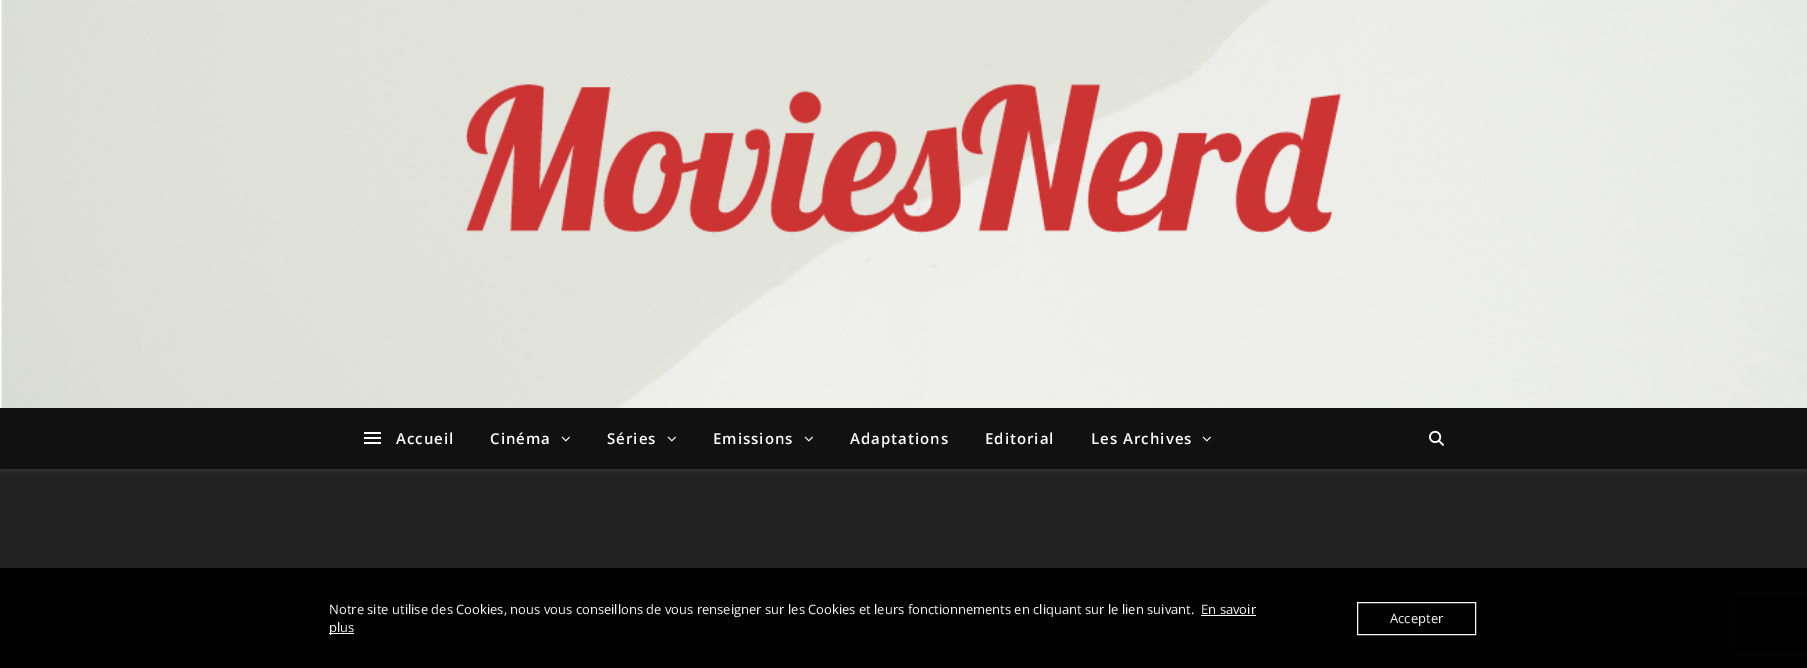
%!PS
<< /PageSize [1807 668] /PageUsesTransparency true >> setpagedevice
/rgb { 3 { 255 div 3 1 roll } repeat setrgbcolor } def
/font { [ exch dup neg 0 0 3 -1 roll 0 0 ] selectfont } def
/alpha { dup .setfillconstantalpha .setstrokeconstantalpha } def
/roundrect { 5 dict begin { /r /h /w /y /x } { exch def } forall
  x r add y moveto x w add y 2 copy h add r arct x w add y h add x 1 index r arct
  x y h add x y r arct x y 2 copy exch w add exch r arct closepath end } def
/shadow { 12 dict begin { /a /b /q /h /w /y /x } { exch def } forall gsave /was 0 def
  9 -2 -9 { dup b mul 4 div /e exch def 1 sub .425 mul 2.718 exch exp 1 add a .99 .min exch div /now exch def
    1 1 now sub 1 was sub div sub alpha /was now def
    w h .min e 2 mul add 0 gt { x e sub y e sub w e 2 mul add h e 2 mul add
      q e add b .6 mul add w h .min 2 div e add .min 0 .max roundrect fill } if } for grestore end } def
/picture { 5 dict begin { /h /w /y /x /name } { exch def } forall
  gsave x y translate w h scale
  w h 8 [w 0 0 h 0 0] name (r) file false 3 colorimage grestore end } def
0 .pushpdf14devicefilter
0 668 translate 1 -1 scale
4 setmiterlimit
34 34 34 rgb
0 0 1807 668 rectfill
255 255 255 rgb
0 0 1 408 rectfill
(img/1.rgb) 1 0 1806 408 picture
0 409 1807 61 0 2.5 0.1 shadow
[
  [0 408 1807 61 17 17 17]
  [364 432 17 2 255 255 255]
  [364 437 17 2 255 255 255]
  [364 442 17 2 255 255 255]
] { aload pop rgb rectfill } forall
(img/2.rgb) 561 436 9 6 picture
(img/2.rgb) 667 436 9 6 picture
(img/2.rgb) 804 436 9 6 picture
(img/2.rgb) 1202 436 9 6 picture
(img/3.rgb) 1429 430 15 16 picture
gsave
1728 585 moveto 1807 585 lineto 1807 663 lineto 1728 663 lineto closepath 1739 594 moveto 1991 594 lineto 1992 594 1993 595 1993 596 curveto 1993 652 lineto 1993 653 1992 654 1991 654 curveto 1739 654 lineto 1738 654 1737 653 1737 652 curveto 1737 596 lineto 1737 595 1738 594 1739 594 curveto closepath eoclip newpath
128 128 128 rgb
1737 594 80 60 2 2.5 1 shadow
grestore
0.97 alpha
[
  [0 568 1807 100 0 0 0]
] { aload pop rgb rectfill } forall
1 alpha
[
  [1201 615 55 1 248 248 248]
  [329 633 25 1 248 248 248]
] { aload pop rgb rectfill } forall
1357.5 602.5 118 32 rectstroke
/OpenSans-SemiBold 15 font
255 255 255 rgb
396 444 moveto 1 0 (Accueil) ashow
490 444 moveto 1 0 (Cinéma) ashow
607 444 moveto 1 0 (Séries) ashow
713 444 moveto 1 0 (Emissions) ashow
850 444 moveto 1 0 (Adaptations) ashow
985 444 moveto 1 0 (Editorial) ashow
1091 444 moveto 1 0 (Les Archives) ashow
/OpenSans-Regular 13 font
247 247 247 rgb
[
  [(Notre site utilise des Cookies, nous vous conseillons de vous renseigner sur les Cookies et leurs fonctionnements en cliquant sur le lien suivant.) 329 614]
  [(En savoir) 1201 614]
  [(plus) 329 632]
  [(Accepter) 1390 623]
] { aload pop moveto show } forall
.poppdf14devicefilter showpage
